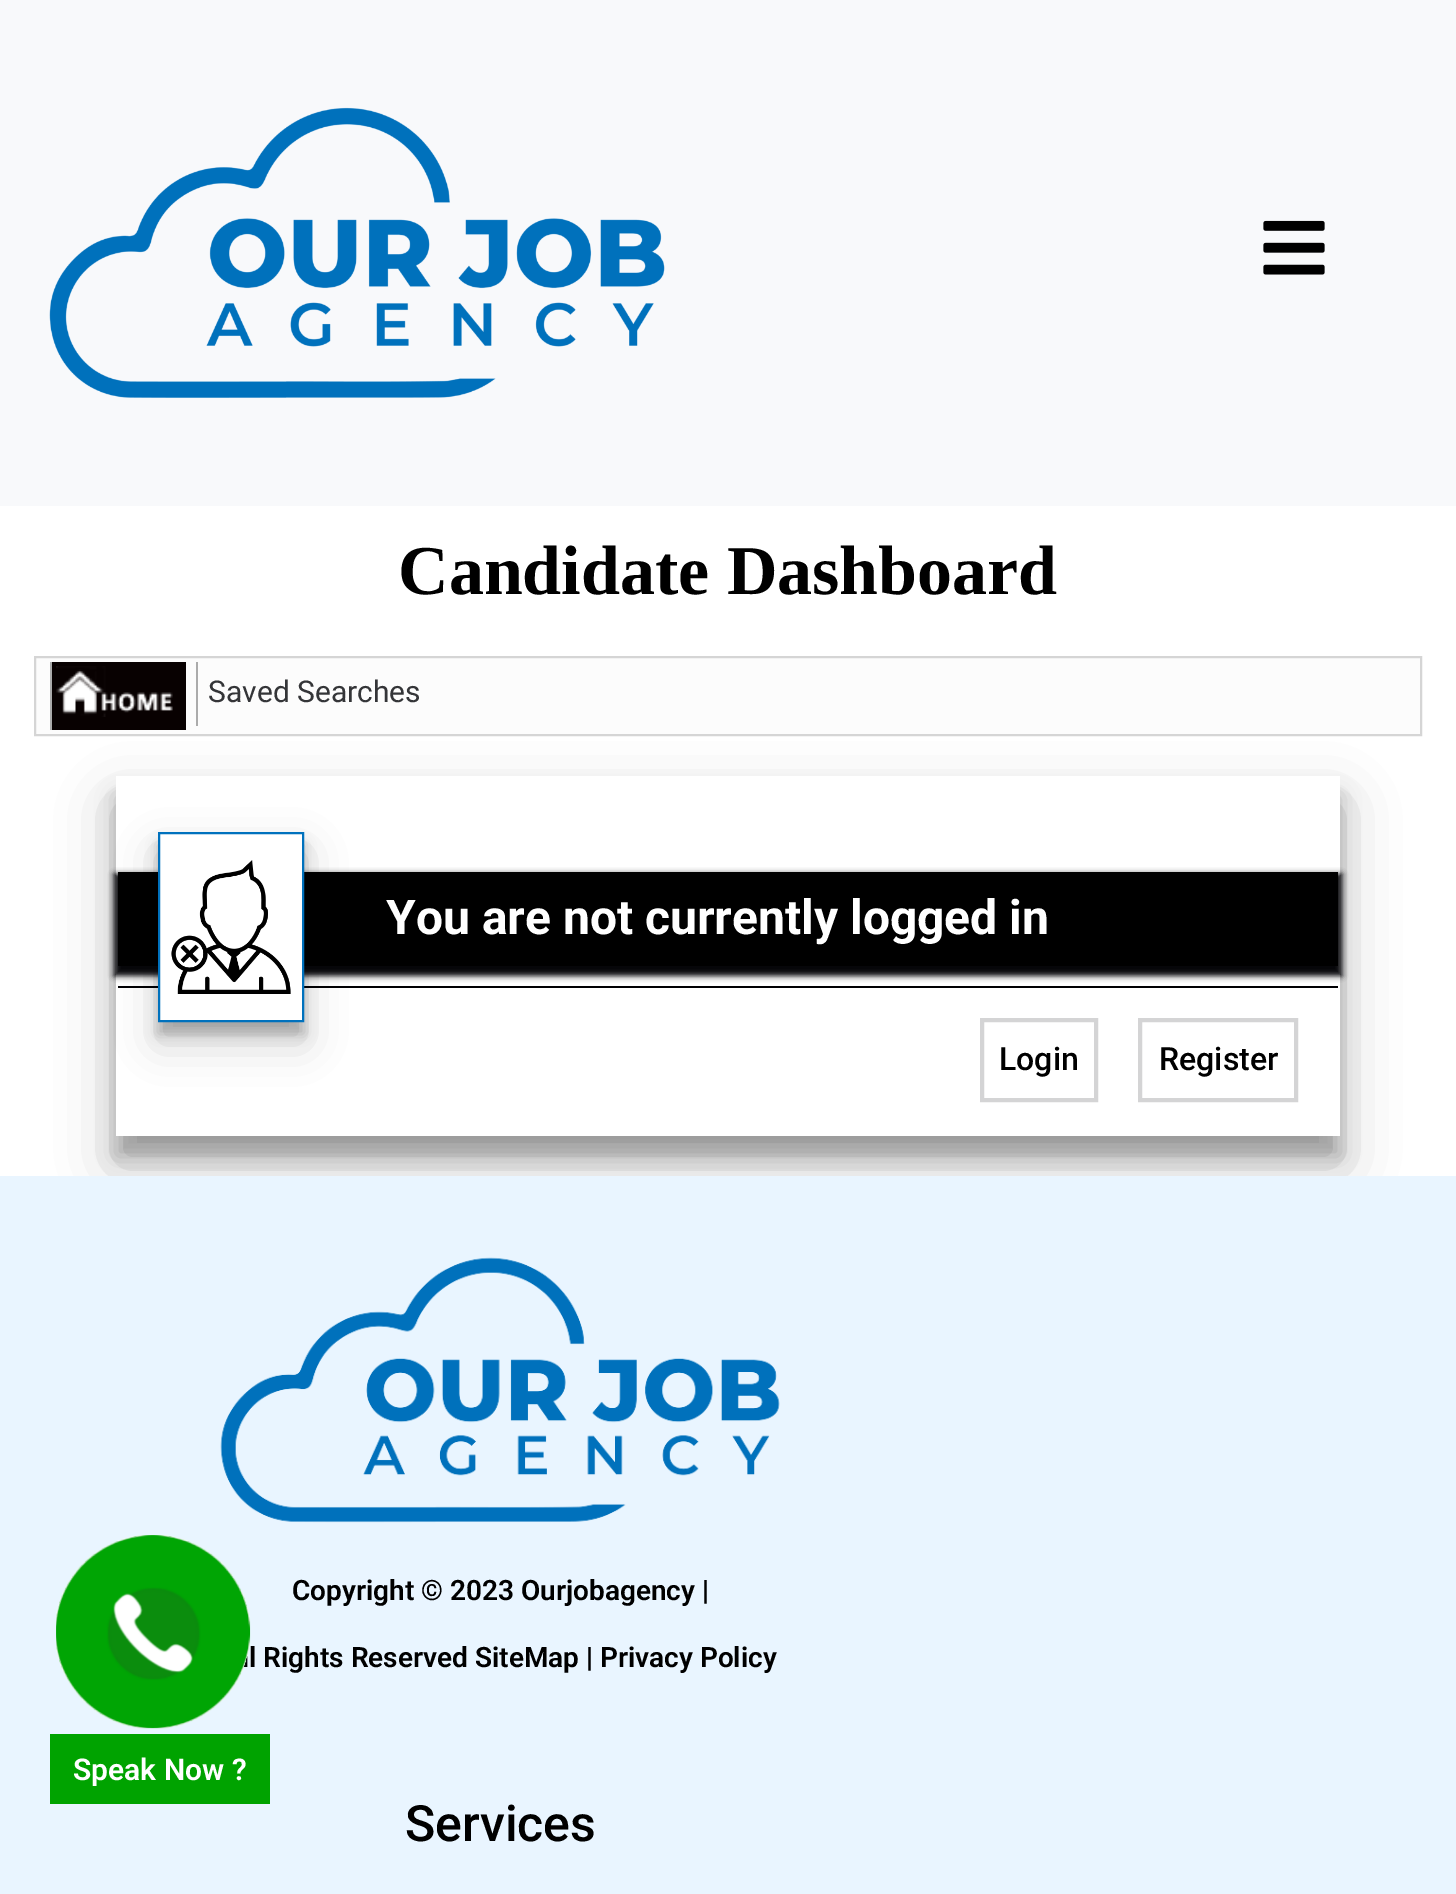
%!PS
<< /PageSize [1456 1894] /PageUsesTransparency true >> setpagedevice
/rgb { 3 { 255 div 3 1 roll } repeat setrgbcolor } def
/font { [ exch dup neg 0 0 3 -1 roll 0 0 ] selectfont } def
/alpha { dup .setfillconstantalpha .setstrokeconstantalpha } def
/roundrect { 5 dict begin { /r /h /w /y /x } { exch def } forall
  x r add y moveto x w add y 2 copy h add r arct x w add y h add x 1 index r arct
  x y h add x y r arct x y 2 copy exch w add exch r arct closepath end } def
/shadow { 12 dict begin { /a /b /q /h /w /y /x } { exch def } forall gsave /was 0 def
  9 -2 -9 { dup b mul 4 div /e exch def 1 sub .425 mul 2.718 exch exp 1 add a .99 .min exch div /now exch def
    1 1 now sub 1 was sub div sub alpha /was now def
    w h .min e 2 mul add 0 gt { x e sub y e sub w e 2 mul add h e 2 mul add
      q e add b .6 mul add w h .min 2 div e add .min 0 .max roundrect fill } if } for grestore end } def
/picture { 5 dict begin { /h /w /y /x /name } { exch def } forall
  gsave x y translate w h scale
  w h 8 [w 0 0 h 0 0] name (r) file false 3 colorimage grestore end } def
0 .pushpdf14devicefilter
0 1894 translate 1 -1 scale
4 setmiterlimit
255 255 255 rgb
0 0 1456 1894 rectfill
gsave
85 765 moveto 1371 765 lineto 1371 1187 lineto 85 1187 lineto closepath 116 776 moveto 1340 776 lineto 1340 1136 lineto 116 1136 lineto closepath eoclip newpath
0 0 0 rgb
116 796 1224 360 0 10 0.22 shadow
grestore
252 252 252 rgb
35 657 moveto 1421 657 lineto 1421 735 lineto 35 735 lineto closepath gsave fill grestore
213 213 213 rgb
2 setlinewidth
stroke
[
  [52 662 134 68 8 1 1]
  [50 662 2 68 171 171 171]
  [196 662 2 64 171 171 171]
] { aload pop rgb rectfill } forall
gsave
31 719 moveto 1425 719 lineto 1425 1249 lineto 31 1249 lineto closepath 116 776 moveto 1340 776 lineto 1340 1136 lineto 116 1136 lineto closepath eoclip newpath
0 0 0 rgb
116 804 1224 360 0 28 0.25 shadow
grestore
233 245 255 rgb
0 1176 1456 718 rectfill
(img/1.rgb) 56 1535 195 194 picture
0 163 0 rgb
50 1734 220 70 rectfill
248 249 251 rgb
0 0 1456 506 rectfill
(img/2.rgb) 49 107 616 291 picture
(img/3.rgb) 1263 220 62 55 picture
(img/4.rgb) 56 666 117 51 picture
0 0 3 rgb
114 874 1228 102 0 3 1 shadow
0 0 0 rgb
118 872 1220 94 rectfill
0 0 3 rgb
118 986 1220 2 rectfill
0 0 0 rgb
158 844 146 190 0 6 0.23 shadow
158 852 146 190 0 20 0.19 shadow
255 255 255 rgb
159 833 moveto 303 833 lineto 303 1021 lineto 159 1021 lineto closepath gsave fill grestore
0 113 189 rgb
stroke
(img/5.rgb) 171 860 120 134 picture
212 212 213 rgb
4 setlinewidth
982 1020 114 80 rectstroke
1140 1020 156 80 rectstroke
(img/6.rgb) 220 1257 560 266 picture
/Roboto-SemiBold 30 font
255 255 255 rgb
73 1780 moveto (Speak Now ?) show
/LiberationSerif-Bold 70 font
0 0 0 rgb
398 594 moveto (Candidate Dashboard) show
/Roboto-Regular 30 font
52 53 56 rgb
208 702 moveto (Saved Searches) show
/Roboto-Bold 48 font
255 255 255 rgb
386 934 moveto (You are not currently logged in) show
/Roboto-Medium 32 font
0 0 0 rgb
999 1070 moveto (Login) show
1159 1070 moveto (Register) show
/Roboto-SemiBold 28 font
292 1600 moveto (Copyright © 2023 Ourjobagency |) show
249 1667 moveto (l Rights Reserved SiteMap | Privacy Policy) show
/Roboto-Medium 50 font
405 1841 moveto (Services) show
.poppdf14devicefilter showpage
